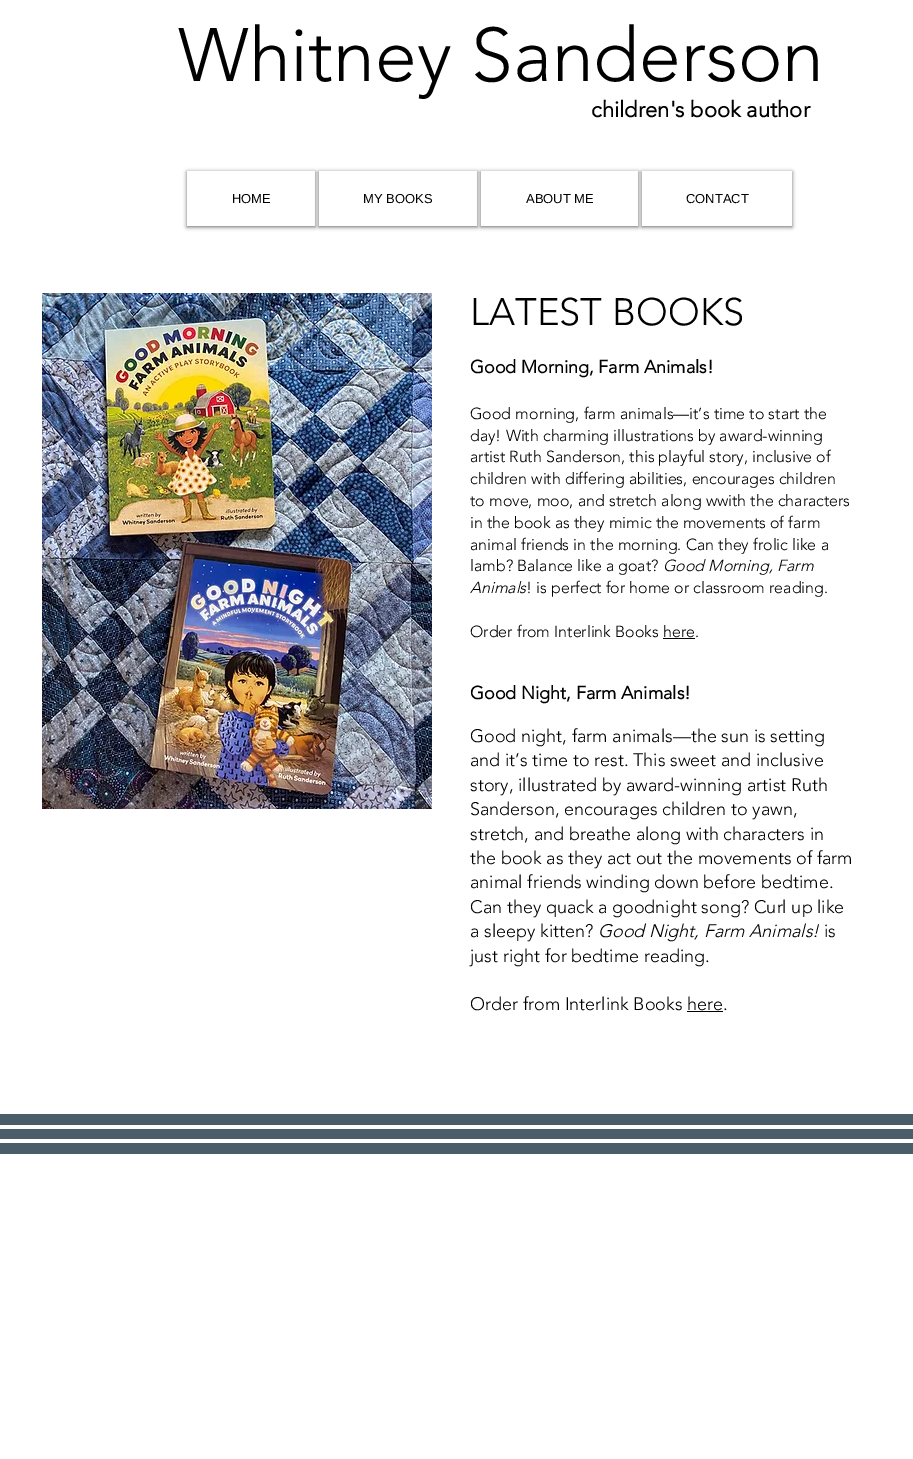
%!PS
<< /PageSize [913 1459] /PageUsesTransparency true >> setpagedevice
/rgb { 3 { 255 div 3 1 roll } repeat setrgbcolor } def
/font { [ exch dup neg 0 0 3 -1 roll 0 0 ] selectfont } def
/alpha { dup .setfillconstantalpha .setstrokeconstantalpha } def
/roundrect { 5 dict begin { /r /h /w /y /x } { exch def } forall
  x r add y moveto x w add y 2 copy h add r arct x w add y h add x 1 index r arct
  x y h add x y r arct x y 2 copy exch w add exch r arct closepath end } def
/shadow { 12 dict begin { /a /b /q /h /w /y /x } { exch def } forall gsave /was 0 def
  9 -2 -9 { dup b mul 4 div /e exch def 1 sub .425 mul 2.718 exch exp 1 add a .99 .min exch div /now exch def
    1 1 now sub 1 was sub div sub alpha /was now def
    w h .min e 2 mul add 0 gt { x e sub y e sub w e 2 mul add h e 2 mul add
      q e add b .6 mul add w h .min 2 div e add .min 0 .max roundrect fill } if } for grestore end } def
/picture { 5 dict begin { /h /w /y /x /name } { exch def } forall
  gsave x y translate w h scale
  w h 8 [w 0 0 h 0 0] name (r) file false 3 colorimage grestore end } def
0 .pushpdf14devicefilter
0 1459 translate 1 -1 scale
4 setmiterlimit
255 255 255 rgb
0 0 913 1459 rectfill
gsave
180 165 moveto 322 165 lineto 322 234 lineto 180 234 lineto closepath 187 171 moveto 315 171 lineto 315 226 lineto 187 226 lineto closepath eoclip newpath
0 0 0 rgb
187 172 128 55 0 2 0.6 shadow
grestore
0 0 0 rgb
319 172 158 55 0 2 0.6 shadow
255 255 255 rgb
319 171 158 55 rectfill
0 0 0 rgb
481 172 157 55 0 2 0.6 shadow
255 255 255 rgb
481 171 157 55 rectfill
0 0 0 rgb
642 172 150 55 0 2 0.6 shadow
255 255 255 rgb
642 171 150 55 rectfill
(img/1.rgb) 42 293 390 516 picture
[
  [663 638 32 1 0 0 0]
  [687 1011 36 1 0 0 0]
  [0 1114 913 40 73 94 105]
  [0 1125 913 4 255 255 255]
  [0 1139 913 4 255 255 255]
] { aload pop rgb rectfill } forall
/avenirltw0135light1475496-Light 75 font
0 0 0 rgb
178 81 moveto (Whitney Sanderson) show
/avenirltw0135light1475496-Bold 22 font
591 117 moveto (children's book author) show
/LiberationSans-Regular 13 font
[
  [(HOME) 232 203]
  [(MY BOOKS) 363 203]
  [(ABOUT ME) 526 203]
  [(CONTACT) 686 203]
] { aload pop moveto show } forall
/avenirltw0135light1475496-Light 38 font
470 325 moveto (LATEST BOOKS) show
/avenirltw0135light1475496-Bold 18 font
470 373 moveto (Good Morning, Farm Animals!) show
/avenirltw0135light1475496-Light 16 font
[
  [(Good morning, farm animals—it’s time to start the) 470 419]
  [(day! With charming illustrations by award-winning) 470 441]
  [(artist Ruth Sanderson, this playful story, inclusive of) 470 462]
  [(children with differing abilities, encourages children) 470 484]
  [(to move, moo, and stretch along wwith the characters) 470 506]
  [(in the book as they mimic the movements of farm) 470 528]
  [(animal friends in the morning. Can they frolic like a) 470 550]
  [(lamb? Balance like a goat?) 470 571]
] { aload pop moveto show } forall
/avenirltw0135light1475496-LightItalic 16 font
663 571 moveto (Good Morning, Farm) show
470 593 moveto (Animals) show
/avenirltw0135light1475496-Light 16 font
526 593 moveto (! is perfect for home or classroom reading.) show
470 637 moveto (Order from Interlink Books here.) show
/avenirltw0135light1475496-Bold 18 font
470 699 moveto (Good Night, Farm Animals!) show
/avenirltw0135light1475496-Light 18 font
[
  [(Good night, farm animals—the sun is setting) 470 742]
  [(and it’s time to rest. This sweet and inclusive) 470 766]
  [(story, illustrated by award-winning artist Ruth) 470 791]
  [(Sanderson, encourages children to yawn,) 470 815]
  [(stretch, and breathe along with characters in) 470 840]
  [(the book as they act out the movements of farm) 470 864]
  [(animal friends winding down before bedtime.) 470 888]
  [(Can they quack a goodnight song? Curl up like) 470 913]
  [(a sleepy kitten?) 470 937]
] { aload pop moveto show } forall
/avenirltw0135light1475496-LightItalic 18 font
598 937 moveto (Good Night, Farm Animals!) show
/avenirltw0135light1475496-Light 18 font
[
  [(is) 824 937]
  [(just right for bedtime reading.) 470 962]
  [(Order from Interlink Books here.) 470 1010]
] { aload pop moveto show } forall
.poppdf14devicefilter showpage
